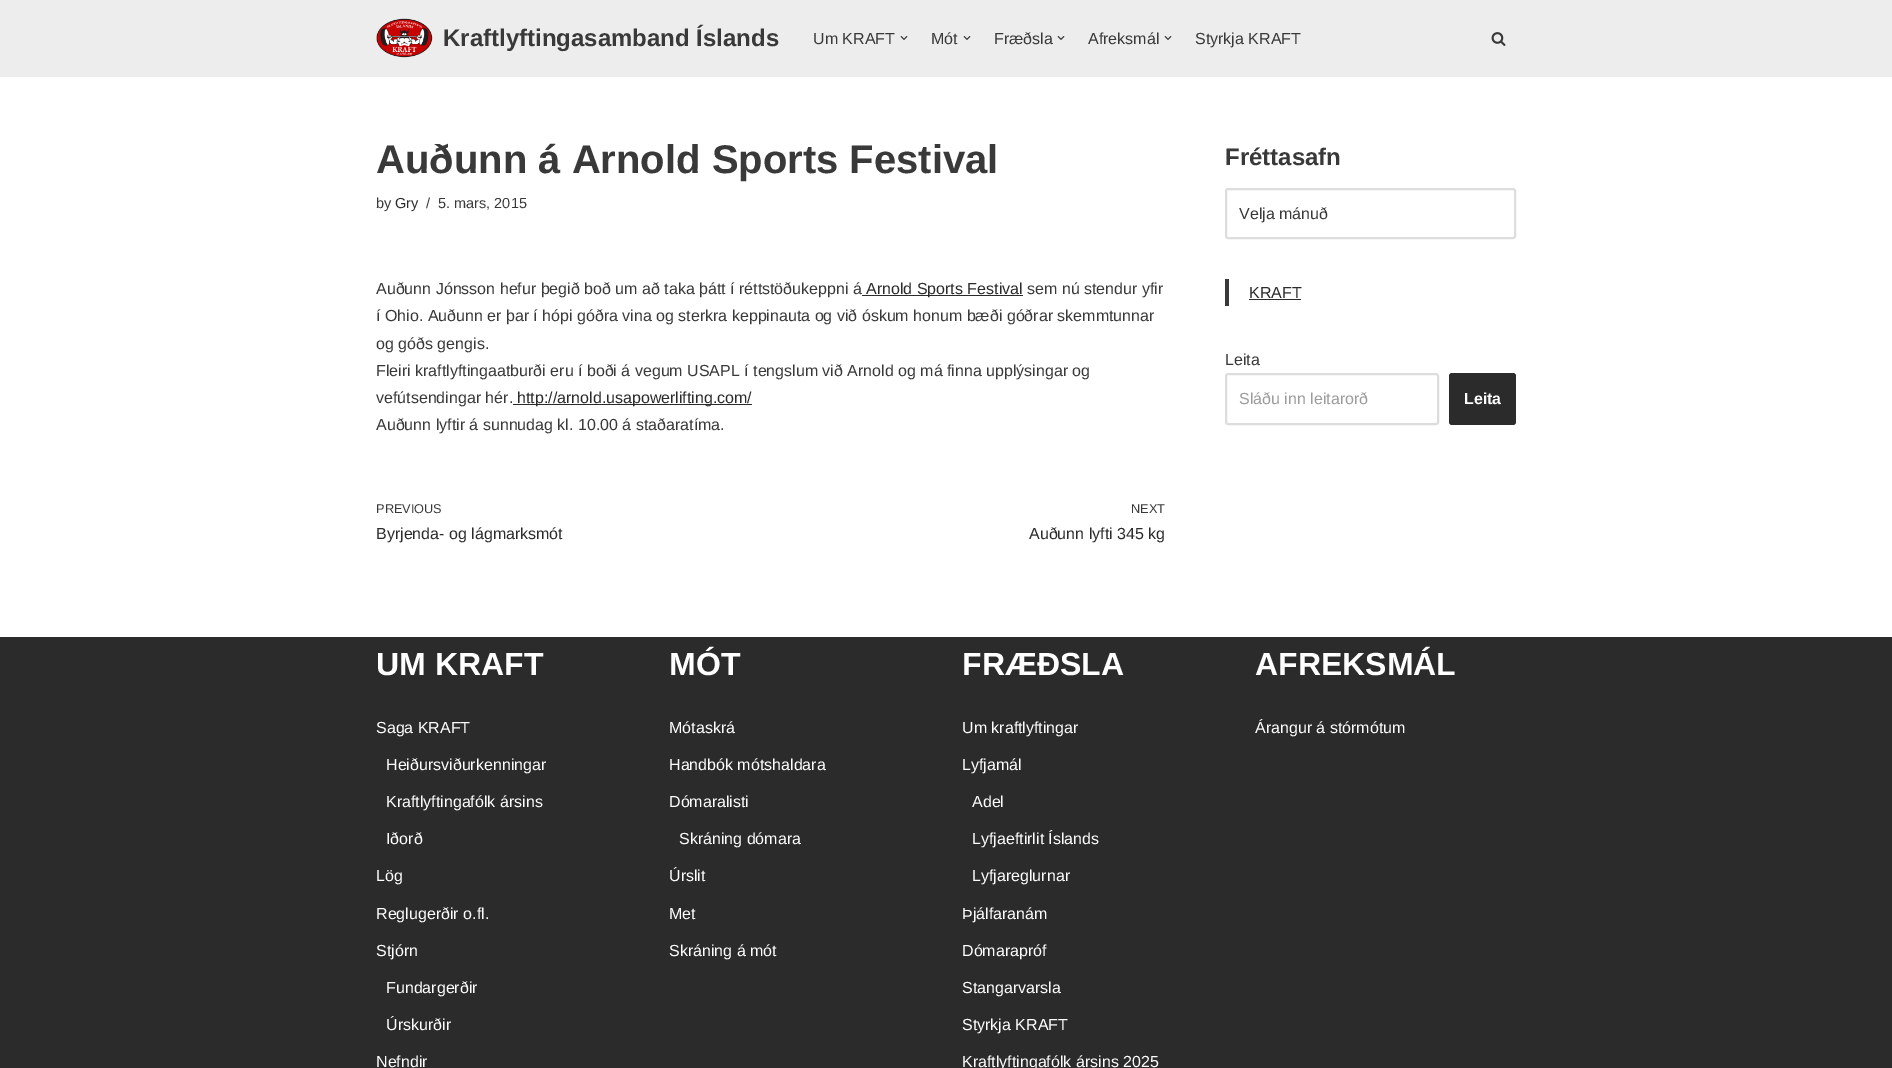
%!PS
<< /PageSize [1892 1068] >> setpagedevice
/rgb { 3 { 255 div 3 1 roll } repeat setrgbcolor } def
/font { [ exch dup neg 0 0 3 -1 roll 0 0 ] selectfont } def
/roundrect { 5 dict begin { /r /h /w /y /x } { exch def } forall
  x r add y moveto x w add y 2 copy h add r arct x w add y h add x 1 index r arct
  x y h add x y r arct x y 2 copy exch w add exch r arct closepath end } def
/picture { 5 dict begin { /h /w /y /x /name } { exch def } forall
  gsave x y translate w h scale
  w h 8 [w 0 0 h 0 0] name (r) file false 3 colorimage grestore end } def
0 1068 translate 1 -1 scale
4 setmiterlimit
255 255 255 rgb
0 0 1892 1068 rectfill
237 237 237 rgb
0 0 1892 77 rectfill
(img/1.rgb) 376 18 57 40 picture
(img/2.rgb) 900 36 8 4 picture
(img/2.rgb) 963 36 8 4 picture
(img/2.rgb) 1057 36 8 4 picture
(img/2.rgb) 1164 36 8 4 picture
(img/3.rgb) 1491 32 15 14 picture
43 43 43 rgb
862 295 161 1 rectfill
513 404 239 1 rectfill
221 221 221 rgb
2 setlinewidth
1226 189 289 49 2 roundrect stroke
57 57 57 rgb
1225 279 4 27 rectfill
43 43 43 rgb
1249 299 52 1 rectfill
221 221 221 rgb
1226 374 212 50 2 roundrect stroke
43 43 43 rgb
1449 373 67 52 3 roundrect fill
0 637 1892 431 rectfill
/LiberationSans-Bold 24 font
57 57 57 rgb
443 46 moveto (Kraftlyftingasamband Íslands) show
/LiberationSans-Regular 16 font
[
  [(Um KRAFT) 813 44]
  [(Mót) 931 44]
  [(Fræðsla) 994 44]
  [(Afreksmál) 1088 44]
  [(Styrkja KRAFT) 1195 44]
] { aload pop moveto show } forall
/LiberationSans-Bold 40 font
376 173 moveto (Auðunn á Arnold Sports Festival) show
/LiberationSans-Regular 14.5 font
376 208 moveto (by) show
43 43 43 rgb
395 208 moveto (Gry) show
57 57 57 rgb
426 208 moveto (/) show
438 208 moveto (5. mars, 2015) show
/LiberationSans-Regular 16 font
376 294 moveto (Auðunn Jónsson hefur þegið boð um að taka þátt í réttstöðukeppni á) show
43 43 43 rgb
866 294 moveto (Arnold Sports Festival) show
57 57 57 rgb
[
  [(sem nú stendur yfir) 1027 294]
  [(í Ohio. Auðunn er þar í hópi góðra vina og sterkra keppinauta og við óskum honum bæði góðrar skemmtunnar) 376 321]
  [(og góðs gengis.) 376 349]
  [(Fleiri kraftlyftingaatburði eru í boði á vegum USAPL í tengslum við Arnold og má finna upplýsingar og) 376 376]
  [(vefútsendingar hér.) 376 403]
] { aload pop moveto show } forall
43 43 43 rgb
517 403 moveto (http://arnold.usapowerlifting.com/) show
57 57 57 rgb
376 430 moveto (Auðunn lyftir á sunnudag kl. 10.00 á staðaratíma.) show
/LiberationSans-Regular 12.75 font
376 513 moveto (PREVIOUS) show
/LiberationSans-Regular 16 font
43 43 43 rgb
376 539 moveto (Byrjenda- og lágmarksmót) show
/LiberationSans-Regular 12.75 font
57 57 57 rgb
1131 513 moveto (NEXT) show
/LiberationSans-Regular 16 font
43 43 43 rgb
1029 539 moveto (Auðunn lyfti 345 kg) show
/LiberationSans-Bold 24 font
57 57 57 rgb
1225 165 moveto (Fréttasafn) show
/LiberationSans-Regular 16 font
1239 219 moveto (Velja mánuð) show
43 43 43 rgb
1249 298 moveto (KRAFT) show
57 57 57 rgb
1225 365 moveto (Leita) show
156 156 156 rgb
1239 404 moveto (Sláðu inn leitarorð) show
/LiberationSans-Bold 16 font
255 255 255 rgb
1464 404 moveto (Leita) show
/LiberationSans-Bold 32 font
376 675 moveto (UM KRAFT) show
/LiberationSans-Regular 16 font
[
  [(Saga KRAFT) 376 733]
  [(Heiðursviðurkenningar) 386 770]
  [(Kraftlyftingafólk ársins) 386 807]
  [(Iðorð) 386 844]
  [(Lög) 376 881]
  [(Reglugerðir o.fl.) 376 919]
  [(Stjórn) 376 956]
  [(Fundargerðir) 386 993]
  [(Úrskurðir) 386 1030]
  [(Nefndir) 376 1067]
] { aload pop moveto show } forall
/LiberationSans-Bold 32 font
669 675 moveto (MÓT) show
/LiberationSans-Regular 16 font
[
  [(Mótaskrá) 669 733]
  [(Handbók mótshaldara) 669 770]
  [(Dómaralisti) 669 807]
  [(Skráning dómara) 679 844]
  [(Úrslit) 669 881]
  [(Met) 669 919]
  [(Skráning á mót) 669 956]
] { aload pop moveto show } forall
/LiberationSans-Bold 32 font
962 675 moveto (FRÆÐSLA) show
/LiberationSans-Regular 16 font
[
  [(Um kraftlyftingar) 962 733]
  [(Lyfjamál) 962 770]
  [(Adel) 972 807]
  [(Lyfjaeftirlit Íslands) 972 844]
  [(Lyfjareglurnar) 972 881]
  [(Þjálfaranám) 962 919]
  [(Dómarapróf) 962 956]
  [(Stangarvarsla) 962 993]
  [(Styrkja KRAFT) 962 1030]
  [(Kraftlyftingafólk ársins 2025) 962 1067]
] { aload pop moveto show } forall
/LiberationSans-Bold 32 font
1255 675 moveto (AFREKSMÁL) show
/LiberationSans-Regular 16 font
1255 733 moveto (Árangur á stórmótum) show
showpage
